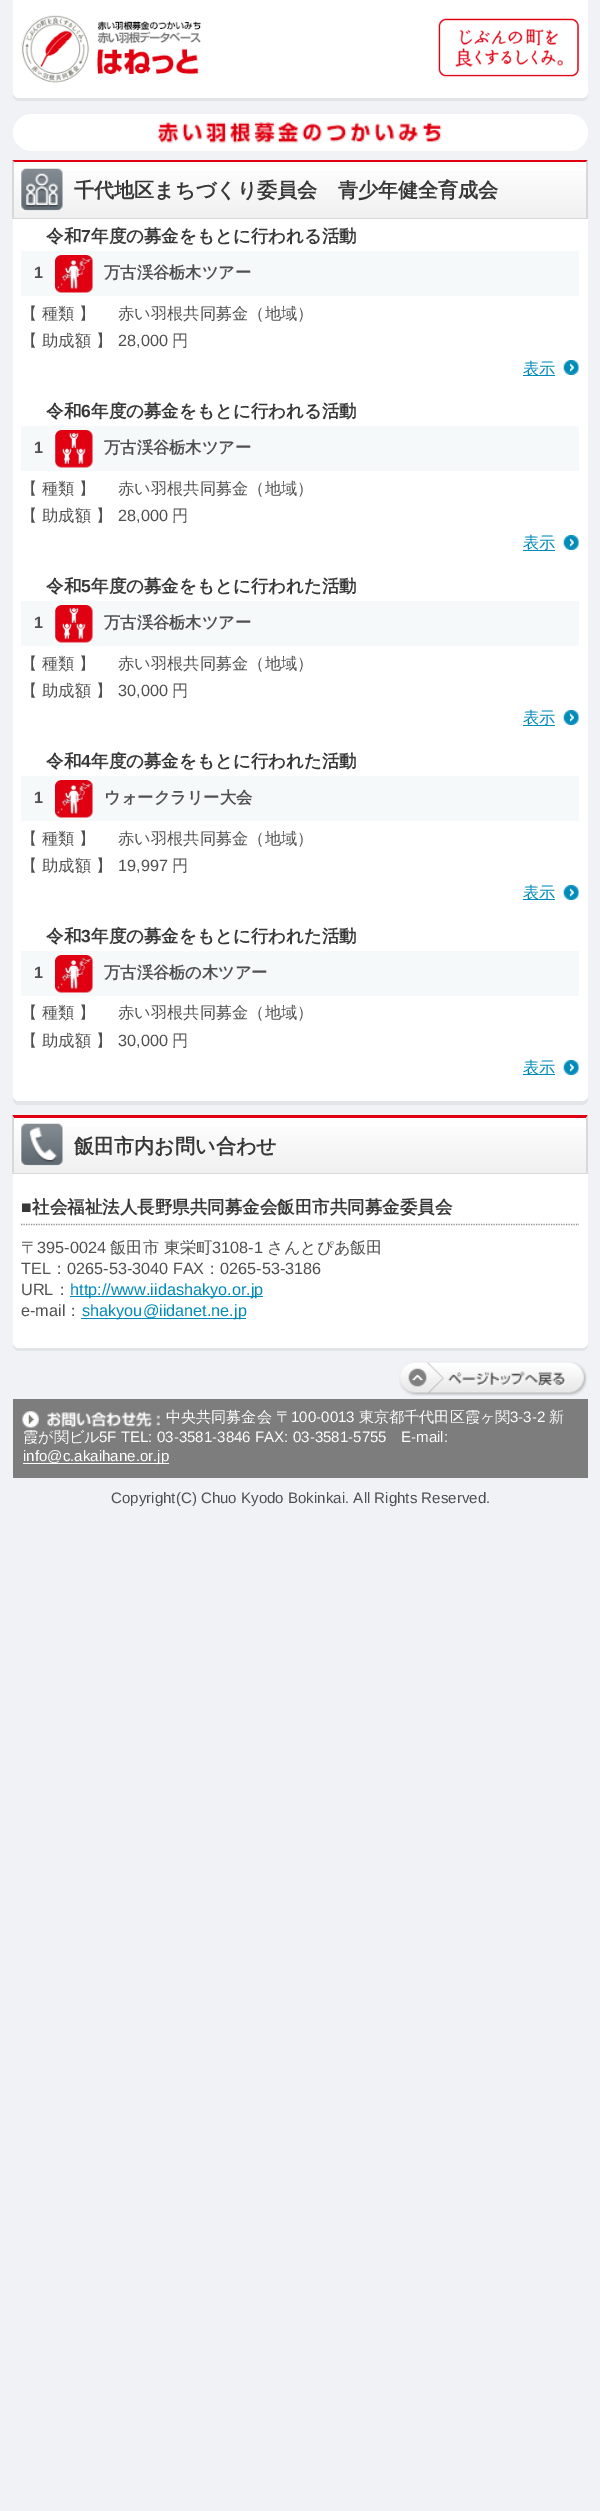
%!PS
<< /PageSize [600 2511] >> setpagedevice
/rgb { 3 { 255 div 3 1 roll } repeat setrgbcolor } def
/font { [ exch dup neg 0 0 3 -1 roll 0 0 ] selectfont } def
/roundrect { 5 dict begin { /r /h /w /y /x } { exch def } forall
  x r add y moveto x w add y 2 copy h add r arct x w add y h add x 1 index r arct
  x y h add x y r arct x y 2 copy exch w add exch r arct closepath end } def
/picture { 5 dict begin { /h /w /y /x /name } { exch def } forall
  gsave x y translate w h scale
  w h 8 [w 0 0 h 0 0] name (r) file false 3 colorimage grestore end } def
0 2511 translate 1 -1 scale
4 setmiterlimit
240 242 245 rgb
0 0 600 2511 rectfill
227 228 232 rgb
13 94 moveto 13 95 lineto 13 98 16 101 19 101 curveto 582 101 lineto 585 101 588 98 588 95 curveto 588 4 lineto 588 91 lineto 588 95 585 98 581 98 curveto 19 98 lineto 16 98 14 96 13 94 curveto closepath fill
255 255 255 rgb
13 0 moveto 588 0 lineto 588 92 lineto 588 95.5 585.5 98 582 98 curveto 19 98 lineto 15.5 98 13 95.5 13 92 curveto closepath fill
(img/1.rgb) 21 15 180 68 picture
(img/2.rgb) 438 18 141 59 picture
13 114 575 37 18.5 roundrect fill
(img/3.rgb) 157 122 285 22 picture
227 228 232 rgb
13 1097 moveto 13 1099 lineto 13 1102 16 1105 19 1105 curveto 582 1105 lineto 585 1105 588 1102 588 1099 curveto 588 164 lineto 588 1095 lineto 588 1098 585 1101 581 1101 curveto 19 1101 lineto 16 1101 14 1100 13 1097 curveto closepath fill
255 255 255 rgb
13 160 moveto 588 160 lineto 588 1095 lineto 588 1098.5 585.5 1101 582 1101 curveto 19 1101 lineto 15.5 1101 13 1098.5 13 1095 curveto closepath fill
gsave 14 171 moveto 586 171 lineto 586 218 lineto 14 218 lineto closepath clip newpath
<< /ShadingType 2 /ColorSpace /DeviceRGB /Coords [300 162 300 218] /Extend [true true] /Function << /FunctionType 2 /Domain [0 1] /C0 [1 1 1] /C1 [0.941 0.941 0.941] /N 1 >> >> shfill grestore
224 0 18 rgb
12 160 moveto 588 160 lineto 586 162 lineto 14 162 lineto closepath fill
216 216 216 rgb
588 160 moveto 588 219 lineto 586 218 lineto 586 162 lineto closepath fill
13 218 575 1 rectfill
12 219 moveto 12 160 lineto 14 162 lineto 14 218 lineto closepath fill
(img/4.rgb) 20 168 43 43 picture
246 249 249 rgb
21 251 558 45 rectfill
(img/5.rgb) 55 255 38 38 picture
0 139 185 rgb
523 375 32 1 rectfill
(img/6.rgb) 563 360 16 15 picture
246 249 249 rgb
21 426 558 45 rectfill
(img/7.rgb) 55 430 38 38 picture
0 139 185 rgb
523 550 32 1 rectfill
(img/6.rgb) 563 535 16 15 picture
246 249 249 rgb
21 601 558 45 rectfill
(img/7.rgb) 55 605 38 38 picture
0 139 185 rgb
523 725 32 1 rectfill
(img/6.rgb) 563 710 16 15 picture
246 249 249 rgb
21 776 558 45 rectfill
(img/5.rgb) 55 780 38 38 picture
0 139 185 rgb
523 899 32 1 rectfill
(img/6.rgb) 563 885 16 15 picture
246 249 249 rgb
21 951 558 45 rectfill
(img/5.rgb) 55 955 38 38 picture
0 139 185 rgb
523 1074 32 1 rectfill
(img/6.rgb) 563 1060 16 15 picture
227 228 232 rgb
13 1344 moveto 13 1345 lineto 13 1348 16 1351 19 1351 curveto 582 1351 lineto 585 1351 588 1348 588 1345 curveto 588 1119 lineto 588 1341 lineto 588 1345 585 1348 581 1348 curveto 19 1348 lineto 16 1348 14 1346 13 1344 curveto closepath fill
255 255 255 rgb
13 1115 moveto 588 1115 lineto 588 1342 lineto 588 1345.5 585.5 1348 582 1348 curveto 19 1348 lineto 15.5 1348 13 1345.5 13 1342 curveto closepath fill
gsave 14 1127 moveto 586 1127 lineto 586 1173 lineto 14 1173 lineto closepath clip newpath
<< /ShadingType 2 /ColorSpace /DeviceRGB /Coords [300 1118 300 1173] /Extend [true true] /Function << /FunctionType 2 /Domain [0 1] /C0 [1 1 1] /C1 [0.941 0.941 0.941] /N 1 >> >> shfill grestore
224 0 18 rgb
12 1115 moveto 588 1115 lineto 586 1118 lineto 14 1118 lineto closepath fill
216 216 216 rgb
588 1115 moveto 588 1174 lineto 586 1172 lineto 586 1118 lineto closepath fill
13 1173 575 1 rectfill
12 1174 moveto 12 1115 lineto 14 1118 lineto 14 1172 lineto closepath fill
(img/8.rgb) 20 1123 43 43 picture
144 144 144 rgb
1.2 setlinewidth
[1.25 1.25] 0 setdash
21 1224.5 moveto 579 1224.5 lineto stroke
0 139 185 rgb
70 1296 193 1 rectfill
81 1318 165 1 rectfill
(img/9.rgb) 399 1361 188 35 picture
125 125 125 rgb
13 1399 575 79 rectfill
(img/10.rgb) 22 1411 138 17 picture
255 255 255 rgb
23 1463 146 1 rectfill
/WenQuanYiZenHei-Bold 20.1 font
56 56 56 rgb
74 197 moveto (千代地区まちづくり委員会　青少年健全育成会) show
/WenQuanYiZenHei-Bold 17.5 font
46 242 moveto (令和) show
/LiberationSans-Bold 17.5 font
81 242 moveto (7) show
/WenQuanYiZenHei-Bold 17.5 font
91 242 moveto (年度の募金をもとに行われる活動) show
/LiberationSans-Bold 16.25 font
80 80 80 rgb
34 278 moveto (1) show
/WenQuanYiZenHei-Bold 16.25 font
104 278 moveto (万古渓谷栃木ツアー) show
/WenQuanYiZenHei-Medium 16.25 font
[
  [(【 種類 】) 21 319]
  [(赤い羽根共同募金（地域）) 118 319]
  [(【 助成額 】) 21 346]
] { aload pop moveto show } forall
/LiberationSans-Regular 16.25 font
118 346 moveto (28,000) show
/WenQuanYiZenHei-Medium 16.25 font
172 346 moveto (円) show
0 139 185 rgb
523 374 moveto (表示) show
/WenQuanYiZenHei-Bold 17.5 font
56 56 56 rgb
46 417 moveto (令和) show
/LiberationSans-Bold 17.5 font
81 417 moveto (6) show
/WenQuanYiZenHei-Bold 17.5 font
91 417 moveto (年度の募金をもとに行われる活動) show
/LiberationSans-Bold 16.25 font
80 80 80 rgb
34 453 moveto (1) show
/WenQuanYiZenHei-Bold 16.25 font
104 453 moveto (万古渓谷栃木ツアー) show
/WenQuanYiZenHei-Medium 16.25 font
[
  [(【 種類 】) 21 494]
  [(赤い羽根共同募金（地域）) 118 494]
  [(【 助成額 】) 21 521]
] { aload pop moveto show } forall
/LiberationSans-Regular 16.25 font
118 521 moveto (28,000) show
/WenQuanYiZenHei-Medium 16.25 font
172 521 moveto (円) show
0 139 185 rgb
523 548 moveto (表示) show
/WenQuanYiZenHei-Bold 17.5 font
56 56 56 rgb
46 592 moveto (令和) show
/LiberationSans-Bold 17.5 font
81 592 moveto (5) show
/WenQuanYiZenHei-Bold 17.5 font
91 592 moveto (年度の募金をもとに行われた活動) show
/LiberationSans-Bold 16.25 font
80 80 80 rgb
34 628 moveto (1) show
/WenQuanYiZenHei-Bold 16.25 font
104 628 moveto (万古渓谷栃木ツアー) show
/WenQuanYiZenHei-Medium 16.25 font
[
  [(【 種類 】) 21 669]
  [(赤い羽根共同募金（地域）) 118 669]
  [(【 助成額 】) 21 696]
] { aload pop moveto show } forall
/LiberationSans-Regular 16.25 font
118 696 moveto (30,000) show
/WenQuanYiZenHei-Medium 16.25 font
172 696 moveto (円) show
0 139 185 rgb
523 723 moveto (表示) show
/WenQuanYiZenHei-Bold 17.5 font
56 56 56 rgb
46 767 moveto (令和) show
/LiberationSans-Bold 17.5 font
81 767 moveto (4) show
/WenQuanYiZenHei-Bold 17.5 font
91 767 moveto (年度の募金をもとに行われた活動) show
/LiberationSans-Bold 16.25 font
80 80 80 rgb
34 803 moveto (1) show
/WenQuanYiZenHei-Bold 16.25 font
104 803 moveto (ウォークラリー大会) show
/WenQuanYiZenHei-Medium 16.25 font
[
  [(【 種類 】) 21 844]
  [(赤い羽根共同募金（地域）) 118 844]
  [(【 助成額 】) 21 871]
] { aload pop moveto show } forall
/LiberationSans-Regular 16.25 font
118 871 moveto (19,997) show
/WenQuanYiZenHei-Medium 16.25 font
172 871 moveto (円) show
0 139 185 rgb
523 898 moveto (表示) show
/WenQuanYiZenHei-Bold 17.5 font
56 56 56 rgb
46 942 moveto (令和) show
/LiberationSans-Bold 17.5 font
81 942 moveto (3) show
/WenQuanYiZenHei-Bold 17.5 font
91 942 moveto (年度の募金をもとに行われた活動) show
/LiberationSans-Bold 16.25 font
80 80 80 rgb
34 978 moveto (1) show
/WenQuanYiZenHei-Bold 16.25 font
104 978 moveto (万古渓谷栃の木ツアー) show
/WenQuanYiZenHei-Medium 16.25 font
[
  [(【 種類 】) 21 1018]
  [(赤い羽根共同募金（地域）) 118 1018]
  [(【 助成額 】) 21 1046]
] { aload pop moveto show } forall
/LiberationSans-Regular 16.25 font
118 1046 moveto (30,000) show
/WenQuanYiZenHei-Medium 16.25 font
172 1046 moveto (円) show
0 139 185 rgb
523 1073 moveto (表示) show
/WenQuanYiZenHei-Bold 20.1 font
56 56 56 rgb
74 1153 moveto (飯田市内お問い合わせ) show
/LiberationSans-Bold 17.5 font
21 1213 moveto (■) show
/WenQuanYiZenHei-Bold 17.5 font
32 1213 moveto (社会福祉法人長野県共同募金会飯田市共同募金委員会) show
/WenQuanYiZenHei-Medium 16.25 font
80 80 80 rgb
21 1253 moveto (〒) show
/LiberationSans-Regular 16.25 font
37 1253 moveto (395-0024) show
/WenQuanYiZenHei-Medium 16.25 font
110 1253 moveto (飯田市 東栄町) show
/LiberationSans-Regular 16.25 font
212 1253 moveto (3108-1) show
/WenQuanYiZenHei-Medium 16.25 font
267 1253 moveto (さんとぴあ飯田) show
/LiberationSans-Regular 16.25 font
21 1274 moveto (TEL) show
/WenQuanYiZenHei-Medium 16.25 font
51 1274 moveto (：) show
/LiberationSans-Regular 16.25 font
67 1274 moveto (0265-53-3040 FAX) show
/WenQuanYiZenHei-Medium 16.25 font
204 1274 moveto (：) show
/LiberationSans-Regular 16.25 font
220 1274 moveto (0265-53-3186) show
21 1295 moveto (URL) show
/WenQuanYiZenHei-Medium 16.25 font
54 1295 moveto (：) show
/LiberationSans-Regular 16.25 font
0 139 185 rgb
70 1295 moveto (http://www.iidashakyo.or.jp) show
80 80 80 rgb
21 1316 moveto (e-mail) show
/WenQuanYiZenHei-Medium 16.25 font
65 1316 moveto (：) show
/LiberationSans-Regular 16.25 font
0 139 185 rgb
82 1316 moveto (shakyou@iidanet.ne.jp) show
/WenQuanYiZenHei-Medium 15.1 font
255 255 255 rgb
166 1422 moveto (中央共同募金会 〒) show
/LiberationSans-Regular 15.1 font
291 1422 moveto (100-0013) show
/WenQuanYiZenHei-Medium 15.1 font
359 1422 moveto (東京都千代田区霞ヶ関) show
/LiberationSans-Regular 15.1 font
510 1422 moveto (3-3-2) show
/WenQuanYiZenHei-Medium 15.1 font
549 1422 moveto (新) show
23 1442 moveto (霞が関ビル) show
/LiberationSans-Regular 15.1 font
[
  [(5F TEL: 03-3581-3846 FAX: 03-3581-5755) 99 1442]
  [(E-mail:) 401 1442]
  [(info@c.akaihane.or.jp) 23 1461]
] { aload pop moveto show } forall
80 80 80 rgb
111 1503 moveto (Copyright\(C\) Chuo Kyodo Bokinkai. All Rights Reserved.) show
showpage
